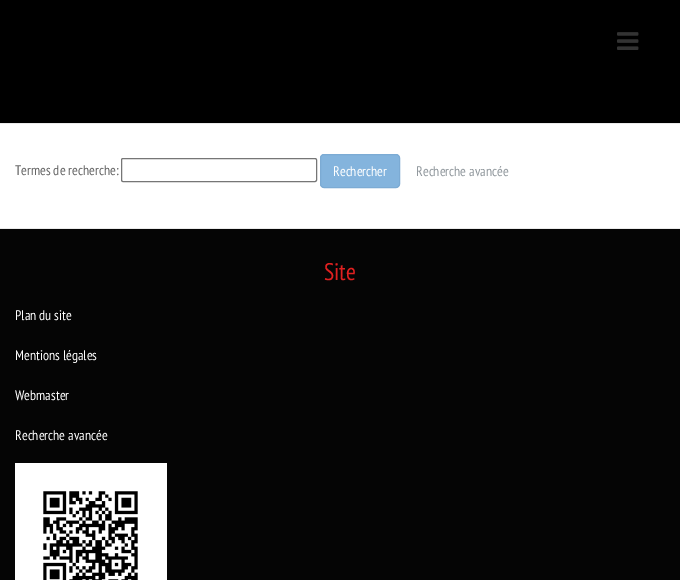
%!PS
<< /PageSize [680 580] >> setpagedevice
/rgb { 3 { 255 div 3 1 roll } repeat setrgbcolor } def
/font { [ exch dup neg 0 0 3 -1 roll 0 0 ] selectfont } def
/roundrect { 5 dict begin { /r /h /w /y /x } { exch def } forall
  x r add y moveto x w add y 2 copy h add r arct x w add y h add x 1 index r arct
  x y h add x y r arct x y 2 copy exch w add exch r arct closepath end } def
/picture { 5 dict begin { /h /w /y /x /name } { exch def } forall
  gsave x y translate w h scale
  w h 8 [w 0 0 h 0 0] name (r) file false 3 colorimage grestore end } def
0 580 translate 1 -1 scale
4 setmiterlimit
255 255 255 rgb
0 0 680 580 rectfill
0 0 0 rgb
0 0 680 123 rectfill
234 234 234 rgb
0 123 680 1 rectfill
(img/1.rgb) 617 32 22 18 picture
118 118 118 rgb
121.5 158.5 195 23 1.5 roundrect stroke
132 180 221 rgb
320.5 154.5 79 33 3.5 roundrect gsave fill grestore
124 171 212 rgb
stroke
5 5 5 rgb
0 229 680 351 rectfill
234 234 234 rgb
0 228 680 1 rectfill
(img/2.rgb) 15 463 152 117 picture
/PTSansNarrow-Regular 14 font
102 102 102 rgb
15 175 moveto (Termes de recherche:) show
255 255 255 rgb
333 176 moveto (Rechercher) show
146 153 158 rgb
416 176 moveto (Recherche avancée) show
/PTSansNarrow-Regular 24 font
224 32 32 rgb
324 280 moveto (Site) show
/PTSansNarrow-Regular 14 font
255 255 255 rgb
[
  [(Plan du site) 15 320]
  [(Mentions légales) 15 360]
  [(Webmaster) 15 400]
  [(Recherche avancée) 15 440]
] { aload pop moveto show } forall
showpage
